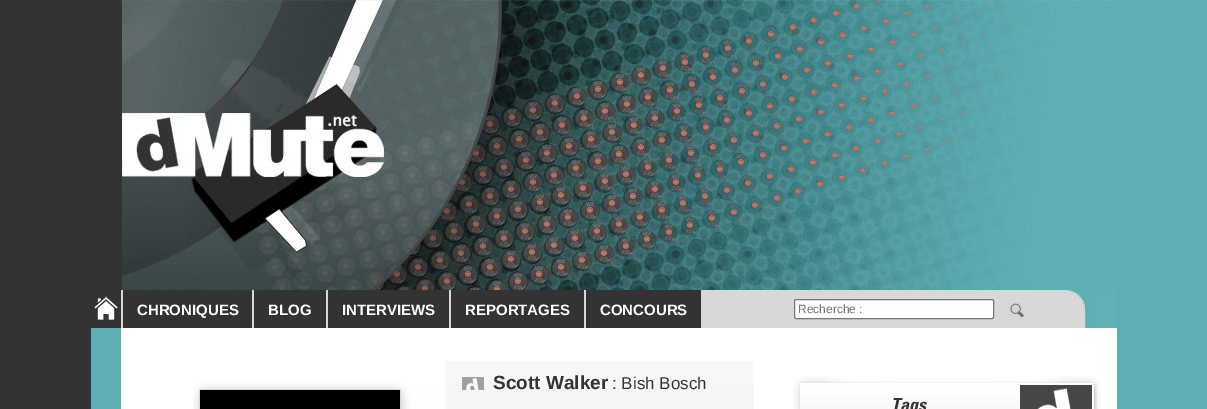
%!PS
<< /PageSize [1207 409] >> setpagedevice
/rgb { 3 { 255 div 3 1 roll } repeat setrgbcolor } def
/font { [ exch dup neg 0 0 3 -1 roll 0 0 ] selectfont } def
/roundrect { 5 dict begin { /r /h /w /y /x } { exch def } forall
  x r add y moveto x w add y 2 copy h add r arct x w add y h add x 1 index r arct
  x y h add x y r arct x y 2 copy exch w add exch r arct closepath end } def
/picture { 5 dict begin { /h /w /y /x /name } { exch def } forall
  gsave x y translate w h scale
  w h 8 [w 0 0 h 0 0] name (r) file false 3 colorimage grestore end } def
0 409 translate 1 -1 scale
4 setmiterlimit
51 51 51 rgb
0 0 1207 409 rectfill
94 175 181 rgb
1113 0 94 409 rectfill
(img/1.rgb) 94 296 24 24 picture
(img/2.rgb) 121 0 992 290 picture
(img/3.rgb) 121 290 996 38 picture
[
  [123 290 129 38 51 51 51]
  [254 290 72 38 51 51 51]
  [328 290 121 38 51 51 51]
  [451 290 133 38 51 51 51]
  [586 290 115 38 51 51 51]
] { aload pop rgb rectfill } forall
255 255 255 rgb
794.5 299.5 199 19 1.5 roundrect gsave fill grestore
118 118 118 rgb
stroke
(img/4.rgb) 1008 303 18 15 picture
94 175 181 rgb
91 328 30 81 rectfill
255 255 255 rgb
121 328 996 81 rectfill
(img/5.rgb) 193 361 561 48 picture
0 2 0 rgb
200 390 200 19 rectfill
(img/6.rgb) 793 376 308 33 picture
/LiberationSans-Bold 15 font
255 255 255 rgb
[
  [(CHRONIQUES) 137 315]
  [(BLOG) 268 315]
  [(INTERVIEWS) 342 315]
  [(REPORTAGES) 465 315]
  [(CONCOURS) 600 315]
] { aload pop moveto show } forall
/LiberationSans-Regular 12 font
117 117 117 rgb
798 313 moveto (Recherche :) show
/LiberationSans-Bold 19 font
51 51 51 rgb
493 389 moveto (Scott Walker) show
/LiberationSans-Regular 17 font
612 389 moveto (: Bish Bosch) show
showpage
